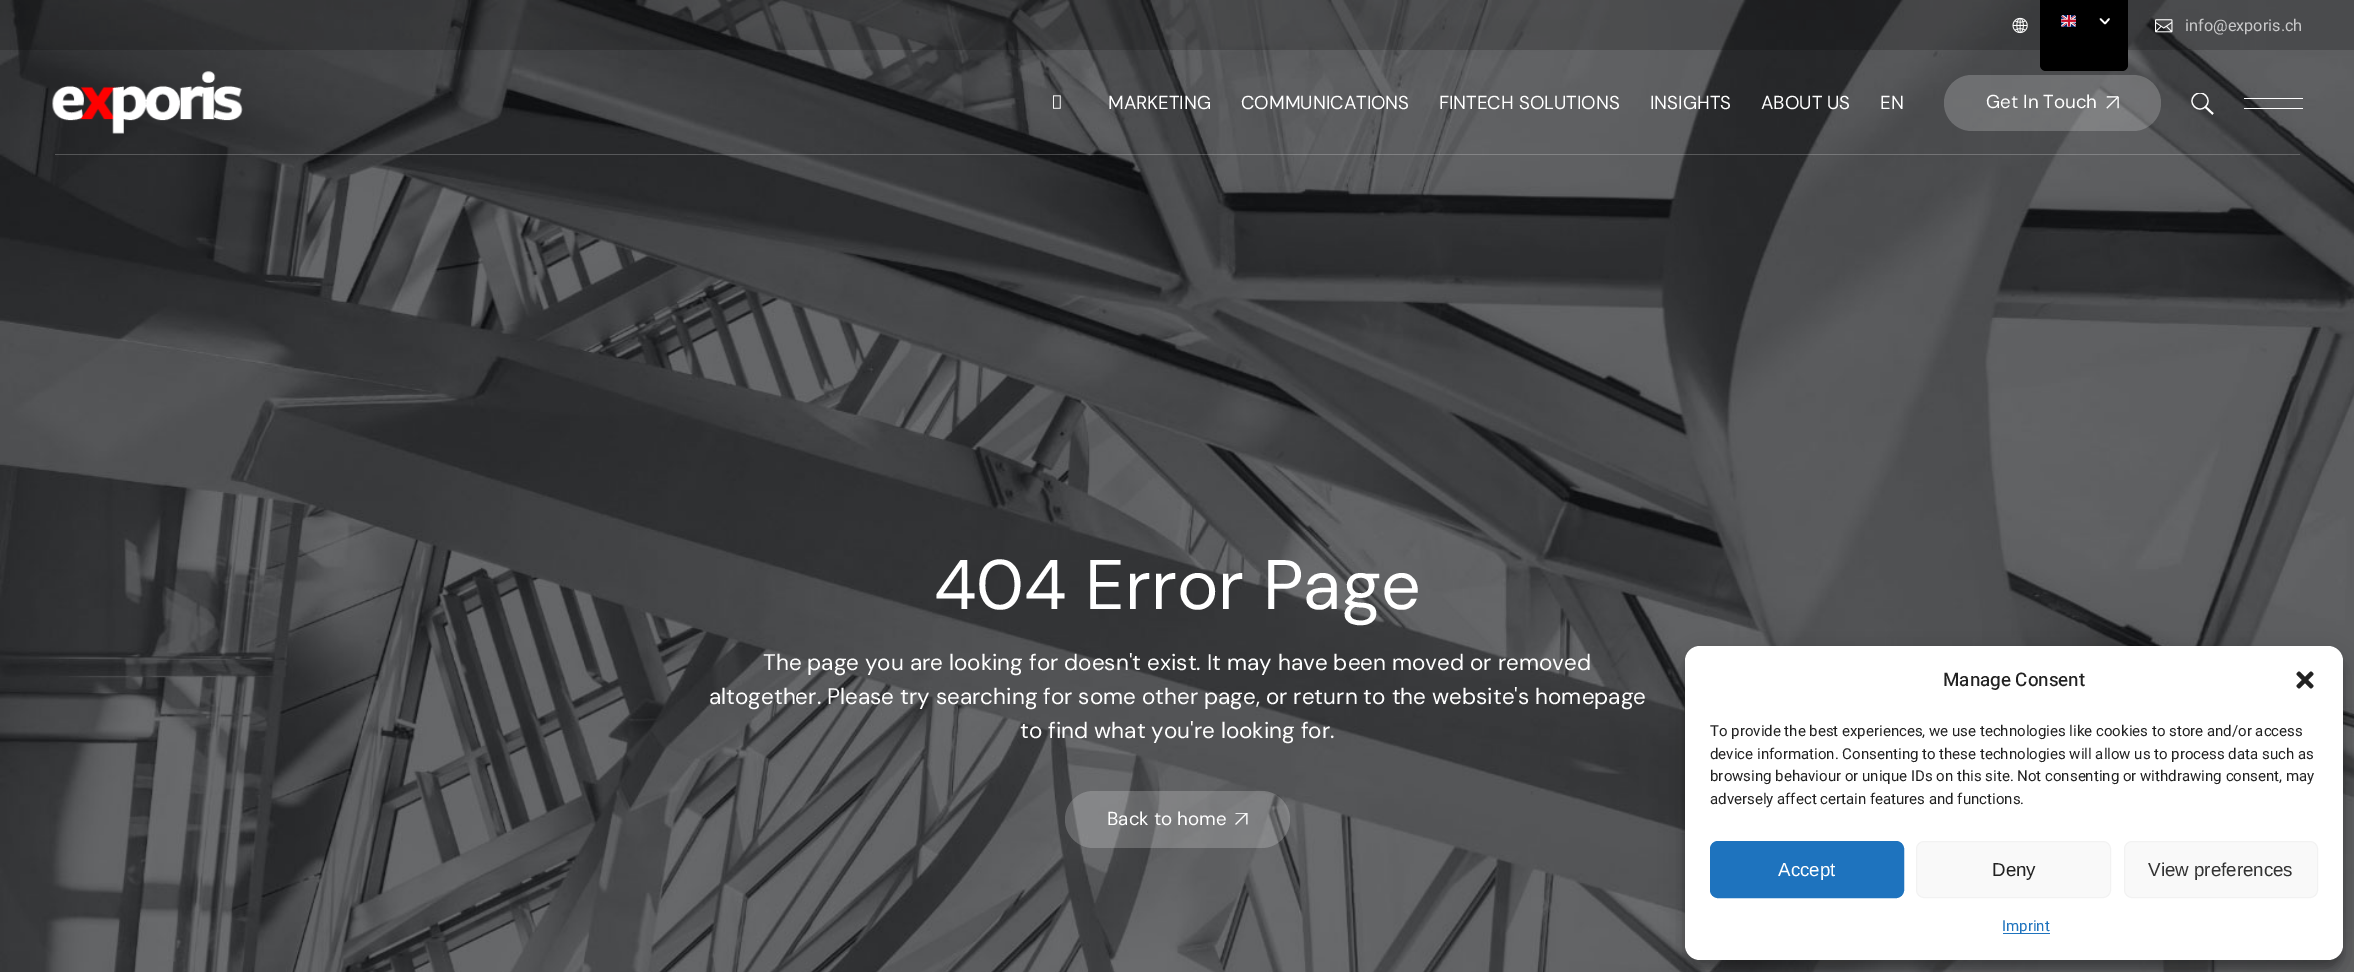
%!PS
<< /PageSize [2354 972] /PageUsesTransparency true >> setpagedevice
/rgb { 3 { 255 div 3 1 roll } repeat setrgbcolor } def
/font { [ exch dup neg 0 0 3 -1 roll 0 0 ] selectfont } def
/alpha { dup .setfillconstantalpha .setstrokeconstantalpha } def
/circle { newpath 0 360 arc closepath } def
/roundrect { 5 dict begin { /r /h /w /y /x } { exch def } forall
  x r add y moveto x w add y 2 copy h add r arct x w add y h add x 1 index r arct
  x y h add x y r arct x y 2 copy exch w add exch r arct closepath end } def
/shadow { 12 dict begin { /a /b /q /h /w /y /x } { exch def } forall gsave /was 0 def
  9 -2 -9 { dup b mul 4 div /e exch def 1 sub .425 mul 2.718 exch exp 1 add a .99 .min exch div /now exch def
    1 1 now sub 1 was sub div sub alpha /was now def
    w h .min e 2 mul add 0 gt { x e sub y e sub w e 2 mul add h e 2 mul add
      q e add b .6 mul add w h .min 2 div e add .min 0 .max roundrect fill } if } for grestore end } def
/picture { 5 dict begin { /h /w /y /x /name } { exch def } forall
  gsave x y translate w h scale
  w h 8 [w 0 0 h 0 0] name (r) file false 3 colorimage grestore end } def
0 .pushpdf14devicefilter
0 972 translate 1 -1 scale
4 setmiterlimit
255 255 255 rgb
0 0 2354 972 rectfill
(img/7.rgb) 0 0 2354 972 picture
0.2 alpha
0 0 0 rgb
0 0 2354 50 rectfill
1 alpha
(img/1.rgb) 2012 17 16 17 picture
2040 -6 88 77 6 roundrect fill
(img/2.rgb) 2061 15 15 12 picture
255 255 255 rgb
1.7 setlinewidth
1 setlinecap
1 setlinejoin
2100.5 19 moveto 2105 23.5 lineto 2109 19 lineto stroke
(img/3.rgb) 2155 19 18 14 picture
(img/4.rgb) 52 71 191 63 picture
(img/5.rgb) 1053 95 8 14 picture
0.2 alpha
1944 75 217 56 28 roundrect fill
1 alpha
(img/6.rgb) 2106 96 13 13 picture
gsave
2191 93 23 22 rectclip
1.2 setlinewidth
0 setlinecap
0 setlinejoin
2200 101 8 circle stroke
grestore
1.9 setlinewidth
0 setlinecap
0 setlinejoin
2205 106.5 moveto 2213 114 lineto stroke
[
  [2244 98 59 1 255 255 255]
  [2244 108 59 1 255 255 255]
] { aload pop rgb rectfill } forall
0.22 alpha
[
  [55 154 2245 1 255 255 255]
] { aload pop rgb rectfill } forall
0.2 alpha
1065 791 225 57 28.5 roundrect fill
1 alpha
(img/8.rgb) 1235 813 13 12 picture
0 0 0 rgb
1685 654 658 314 15 4 0.23 shadow
1685 659 658 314 15 12.5 0.19 shadow
255 255 255 rgb
1685 646 658 314 15 roundrect fill
(img/9.rgb) 2296 671 18 18 picture
30 115 190 rgb
1710.5 841.5 193 56 7.5 roundrect gsave fill grestore
1 setlinewidth
stroke
249 249 249 rgb
1916.5 841.5 194 56 7.5 roundrect gsave fill grestore
242 242 242 rgb
stroke
249 249 249 rgb
2124.5 841.5 193 56 7.5 roundrect gsave fill grestore
242 242 242 rgb
stroke
30 115 190 rgb
2003 933 47 1 rectfill
/Heebo-Regular 16.25 font
201 201 202 rgb
2185 31 moveto (info@exporis.ch) show
/DMSans-Regular 18.75 font
255 255 255 rgb
[
  [(MARKETING) 1108 109]
  [(COMMUNICATIONS) 1241 109]
  [(FINTECH SOLUTIONS) 1439 109]
  [(INSIGHTS) 1650 109]
  [(ABOUT US) 1761 109]
  [(EN) 1880 109]
  [(Get In Touch) 1986 108]
] { aload pop moveto show } forall
/DMSans-Regular 70 font
934 609 moveto (404 Error Page) show
/DMSans-Regular 22.5 font
[
  [(The page you are looking for doesn't exist. It may have been moved or removed) 763 670]
  [(altogether. Please try searching for some other page, or return to the website's homepage) 709 704]
  [(to find what you're looking for.) 1020 738]
] { aload pop moveto show } forall
/DMSans-Regular 18.75 font
1107 825 moveto (Back to home) show
/Heebo-Medium 18.75 font
34 34 34 rgb
1943 686 moveto (Manage Consent) show
/Heebo-Regular 15 font
[
  [(To provide the best experiences, we use technologies like cookies to store and/or access) 1710 736]
  [(device information. Consenting to these technologies will allow us to process data such as) 1710 759]
  [(browsing behaviour or unique IDs on this site. Not consenting or withdrawing consent, may) 1710 781]
  [(adversely affect certain features and functions.) 1710 804]
] { aload pop moveto show } forall
/LiberationSans-Regular 18.75 font
255 255 255 rgb
1778 876 moveto (Accept) show
34 34 34 rgb
1992 876 moveto (Deny) show
51 51 51 rgb
2148 876 moveto (View preferences) show
/Heebo-Regular 15 font
30 115 190 rgb
2002 931 moveto (Imprint) show
.poppdf14devicefilter showpage
